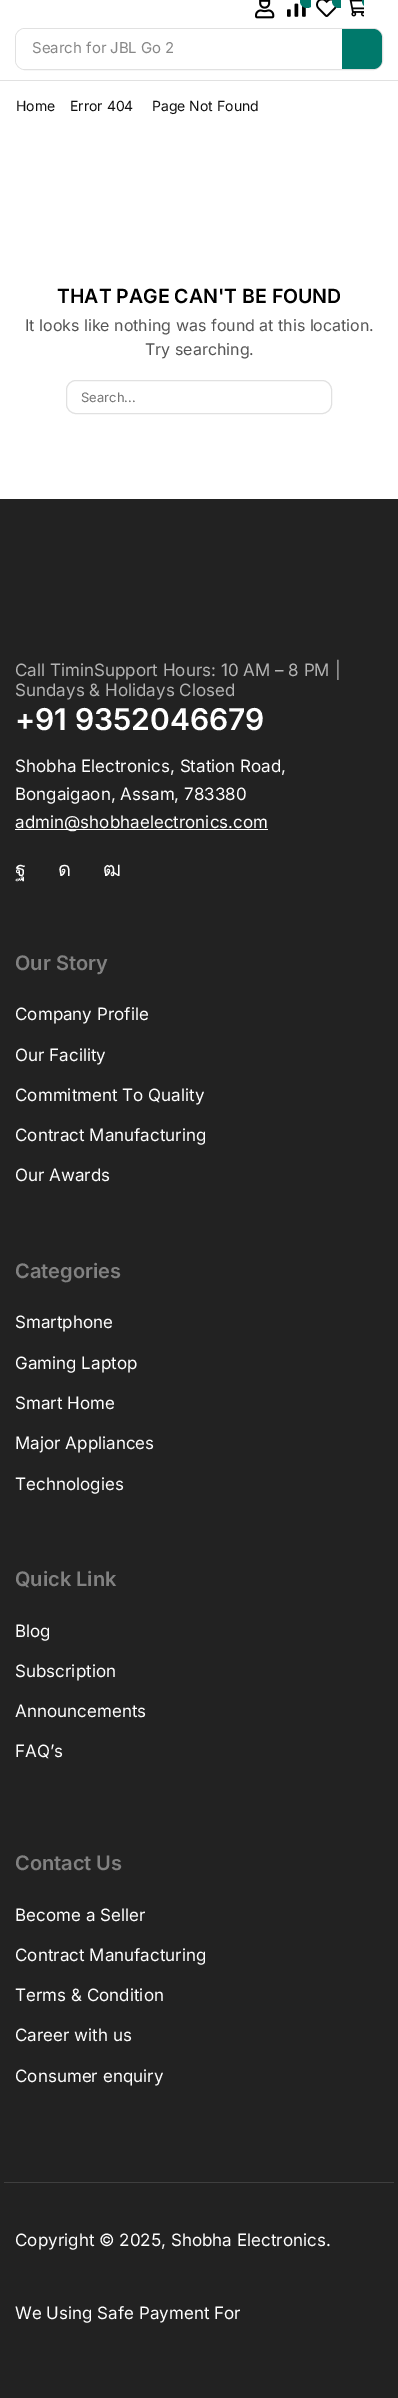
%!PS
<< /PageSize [398 2398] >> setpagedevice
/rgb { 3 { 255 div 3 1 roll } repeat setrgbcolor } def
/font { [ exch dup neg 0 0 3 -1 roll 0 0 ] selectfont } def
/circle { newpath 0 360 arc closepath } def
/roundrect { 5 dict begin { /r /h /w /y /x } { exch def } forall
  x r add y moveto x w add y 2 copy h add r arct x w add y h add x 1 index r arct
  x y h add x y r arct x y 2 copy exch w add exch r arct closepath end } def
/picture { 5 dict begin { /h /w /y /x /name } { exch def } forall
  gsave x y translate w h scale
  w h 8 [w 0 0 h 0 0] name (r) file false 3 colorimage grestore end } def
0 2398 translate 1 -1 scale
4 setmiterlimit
255 255 255 rgb
0 0 398 2398 rectfill
225 225 225 rgb
0 80 398 1 rectfill
(img/1.rgb) 287 3 19 14 picture
0 121 107 rgb
307 1 7 circle fill
255 255 255 rgb
311 -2 40 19 3 roundrect fill
(img/2.rgb) 316 0 21 17 picture
0 121 107 rgb
339 1 7 circle fill
255 255 255 rgb
341 -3 40 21 3 roundrect fill
(img/3.rgb) 349 0 15 17 picture
0 121 107 rgb
369 1 7 circle fill
(img/4.rgb) 255 0 20 19 picture
255 255 255 rgb
364 -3 28 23 3 roundrect fill
225 225 225 rgb
15.5 28.5 367 41 9.5 roundrect stroke
255 255 255 rgb
25 29 moveto 342 29 lineto 342 69 lineto 25 69 lineto 20 69 16 65 16 60 curveto 16 38 lineto 16 33 20 29 25 29 curveto closepath fill
0 121 107 rgb
342 29 moveto 373 29 lineto 378 29 382 33 382 38 curveto 382 60 lineto 382 65 378 69 373 69 curveto 342 69 lineto closepath fill
225 225 225 rgb
66.5 380.5 265 33 9.5 roundrect stroke
[
  [0 499 398 1899 34 34 34]
  [15 829 253 1 255 255 255]
  [4 2182 390 1 63 63 63]
] { aload pop rgb rectfill } forall
/Inter-Regular 15 font
136 136 136 rgb
32 53 moveto (Search for) show
110 53 moveto (JBL Go 2) show
/Inter-Regular 14 font
17 17 17 rgb
[
  [(Home) 16 111]
  [(Error 404) 70 111]
  [(Page Not Found) 152 111]
] { aload pop moveto show } forall
/Inter-SemiBold 19.5 font
0 0 0 rgb
57 303 moveto (THAT PAGE CAN'T BE FOUND) show
/Inter-Regular 16 font
85 85 85 rgb
25 331 moveto (It looks like nothing was found at this location.) show
145 355 moveto (Try searching.) show
/Inter-Regular 13 font
117 117 117 rgb
81 402 moveto (Search...) show
/Inter-Regular 17 font
179 179 179 rgb
15 676 moveto (Call TiminSupport Hours: 10 AM – 8 PM |) show
15 696 moveto (Sundays & Holidays Closed) show
/Inter-SemiBold 30 font
255 255 255 rgb
15 730 moveto (+91 9352046679) show
/Inter-Regular 17 font
[
  [(Shobha Electronics, Station Road,) 15 772]
  [(Bongaigaon, Assam, 783380) 15 800]
  [(admin@shobhaelectronics.com) 15 828]
] { aload pop moveto show } forall
/Loma-Regular 20 font
[
  [(ฐ) 15 876]
  [(ด) 58 876]
  [(ฒ) 103 876]
] { aload pop moveto show } forall
/Inter-SemiBold 20 font
129 129 129 rgb
15 970 moveto (Our Story) show
/Inter-Regular 17 font
255 255 255 rgb
[
  [(Company Profile) 15 1020]
  [(Our Facility) 15 1061]
  [(Commitment To Quality) 15 1101]
  [(Contract Manufacturing) 15 1141]
  [(Our Awards) 15 1181]
] { aload pop moveto show } forall
/Inter-SemiBold 20 font
129 129 129 rgb
15 1278 moveto (Categories) show
/Inter-Regular 17 font
255 255 255 rgb
[
  [(Smartphone) 15 1328]
  [(Gaming Laptop) 15 1369]
  [(Smart Home) 15 1409]
  [(Major Appliances) 15 1449]
  [(Technologies) 15 1490]
] { aload pop moveto show } forall
/Inter-SemiBold 20 font
129 129 129 rgb
15 1586 moveto (Quick Link) show
/Inter-Regular 17 font
255 255 255 rgb
[
  [(Blog) 15 1637]
  [(Subscription) 15 1677]
  [(Announcements) 15 1717]
  [(FAQ’s) 15 1757]
] { aload pop moveto show } forall
/Inter-SemiBold 20 font
129 129 129 rgb
15 1870 moveto (Contact Us) show
/Inter-Regular 17 font
255 255 255 rgb
[
  [(Become a Seller) 15 1921]
  [(Contract Manufacturing) 15 1961]
  [(Terms & Condition) 15 2001]
  [(Career with us) 15 2041]
  [(Consumer enquiry) 15 2082]
  [(Copyright © 2025, Shobha Electronics.) 15 2246]
  [(We Using Safe Payment For) 15 2319]
] { aload pop moveto show } forall
showpage
